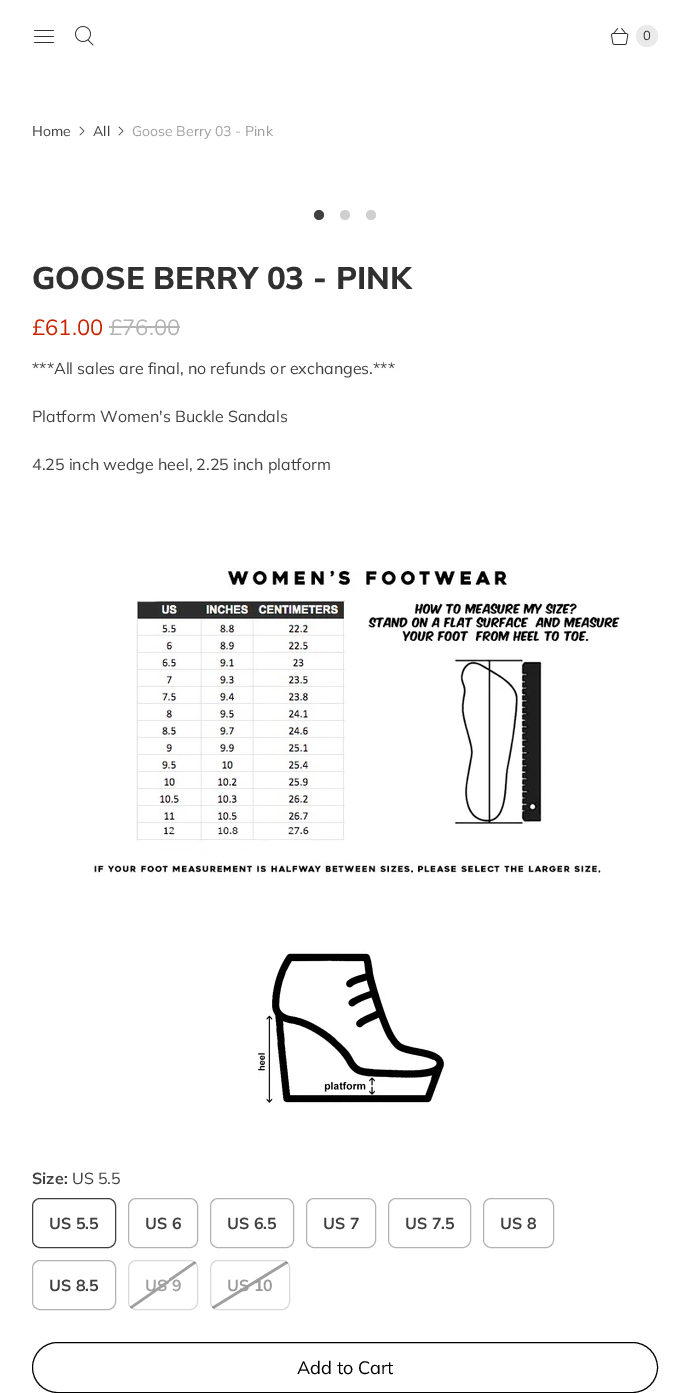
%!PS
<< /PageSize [690 1393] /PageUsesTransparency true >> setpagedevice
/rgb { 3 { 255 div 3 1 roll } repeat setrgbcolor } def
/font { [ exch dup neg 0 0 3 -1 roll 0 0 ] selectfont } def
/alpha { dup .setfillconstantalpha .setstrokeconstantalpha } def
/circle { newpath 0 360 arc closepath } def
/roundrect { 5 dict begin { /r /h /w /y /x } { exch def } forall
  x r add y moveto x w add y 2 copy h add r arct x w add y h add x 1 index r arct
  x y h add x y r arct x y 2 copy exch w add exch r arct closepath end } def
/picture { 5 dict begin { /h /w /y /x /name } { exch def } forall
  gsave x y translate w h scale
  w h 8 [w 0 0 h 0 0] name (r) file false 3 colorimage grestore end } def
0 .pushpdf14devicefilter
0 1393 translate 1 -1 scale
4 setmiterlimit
255 255 255 rgb
0 0 690 1393 rectfill
(img/1.rgb) 34 30 20 13 picture
(img/2.rgb) 75 26 19 20 picture
(img/3.rgb) 611 28 18 17 picture
234 234 234 rgb
647 36 11 circle fill
(img/4.rgb) 79 126 6 10 picture
(img/4.rgb) 118 126 6 10 picture
64 64 64 rgb
319 215 5 circle fill
207 207 207 rgb
345 215 5 circle fill
371 215 5 circle fill
180 180 180 rgb
109 326 71 2 rectfill
(img/5.rgb) 93 568 527 308 picture
(img/6.rgb) 257 950 188 156 picture
64 64 64 rgb
32.5 1198.5 83 49 7.5 roundrect stroke
179 179 179 rgb
128.5 1198.5 69 49 7.5 roundrect stroke
210.5 1198.5 83 49 7.5 roundrect stroke
306.5 1198.5 69 49 7.5 roundrect stroke
388.5 1198.5 82 49 7.5 roundrect stroke
483.5 1198.5 70 49 7.5 roundrect stroke
32.5 1260.5 83 49 7.5 roundrect stroke
(img/7.rgb) 129 1260 68 50 picture
0.2 alpha
64 64 64 rgb
128.5 1260.5 69 49 7.5 roundrect stroke
1 alpha
(img/8.rgb) 211 1260 78 50 picture
0.2 alpha
210.5 1260.5 79 49 7.5 roundrect stroke
1 alpha
0 0 0 rgb
32.5 1342.5 625 50 25 roundrect stroke
/Muli-Regular 13 font
48 48 48 rgb
643 40 moveto (0) show
/Muli-Regular 14 font
64 64 64 rgb
32 136 moveto (Home) show
93 136 moveto (All) show
160 160 160 rgb
132 136 moveto (Goose Berry 03 - Pink) show
/Muli-ExtraBold 31.25 font
48 48 48 rgb
32 289 moveto (GOOSE BERRY 03 - PINK) show
/Muli-Regular 22 font
201 36 0 rgb
32 335 moveto (£61.00) show
180 180 180 rgb
109 335 moveto (£76.00) show
/Muli-Regular 16 font
64 64 64 rgb
[
  [(***All sales are final, no refunds or exchanges.***) 32 374]
  [(Platform Women's Buckle Sandals) 32 422]
  [(4.25 inch wedge heel, 2.25 inch platform) 32 470]
] { aload pop moveto show } forall
/Muli-Bold 16 font
32 1184 moveto (Size:) show
/Muli-Regular 16 font
72 1184 moveto (US 5.5) show
/Muli-Bold 16 font
[
  [(US 5.5) 49 1229]
  [(US 6) 145 1229]
  [(US 6.5) 227 1229]
  [(US 7) 323 1229]
  [(US 7.5) 405 1229]
  [(US 8) 500 1229]
  [(US 8.5) 49 1291]
] { aload pop moveto show } forall
160 160 160 rgb
145 1291 moveto (US 9) show
154 154 154 rgb
227 1291 moveto (US 10) show
/Muli-Regular 18 font
0 0 0 rgb
297 1374 moveto (Add to Cart) show
.poppdf14devicefilter showpage
